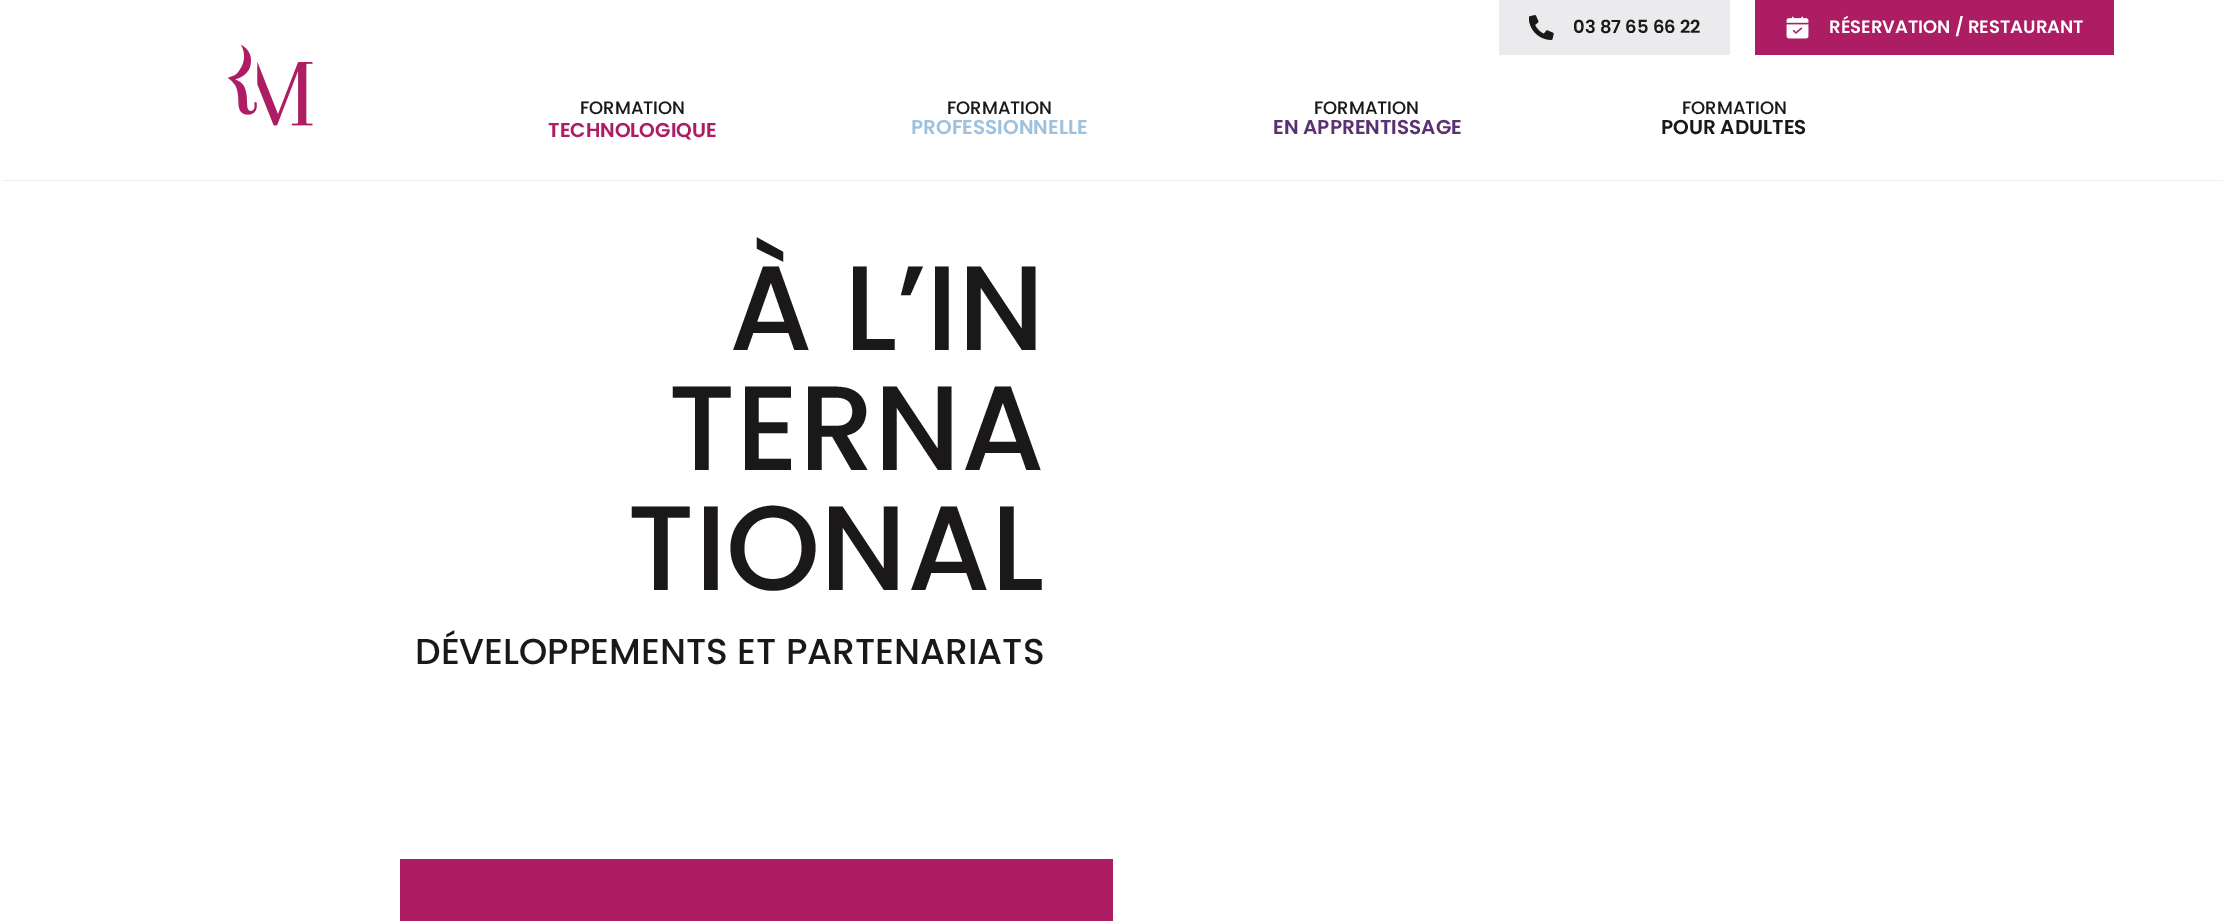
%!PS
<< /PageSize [2225 921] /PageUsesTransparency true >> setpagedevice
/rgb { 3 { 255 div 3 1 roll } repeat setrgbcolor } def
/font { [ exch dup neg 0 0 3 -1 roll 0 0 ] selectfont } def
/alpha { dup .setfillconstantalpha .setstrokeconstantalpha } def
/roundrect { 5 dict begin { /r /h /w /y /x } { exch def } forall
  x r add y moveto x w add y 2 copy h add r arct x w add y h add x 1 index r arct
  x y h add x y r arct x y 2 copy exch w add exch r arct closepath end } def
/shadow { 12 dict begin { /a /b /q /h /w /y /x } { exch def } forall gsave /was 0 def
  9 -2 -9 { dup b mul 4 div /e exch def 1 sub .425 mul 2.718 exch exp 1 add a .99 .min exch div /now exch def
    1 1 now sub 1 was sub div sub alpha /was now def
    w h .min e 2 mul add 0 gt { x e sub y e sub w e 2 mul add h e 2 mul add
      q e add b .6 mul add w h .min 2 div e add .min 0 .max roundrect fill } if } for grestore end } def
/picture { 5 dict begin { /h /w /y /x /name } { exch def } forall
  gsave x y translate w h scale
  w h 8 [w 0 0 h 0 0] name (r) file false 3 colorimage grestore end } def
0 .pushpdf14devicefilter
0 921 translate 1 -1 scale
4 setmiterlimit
255 255 255 rgb
0 0 2225 921 rectfill
gsave
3 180 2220 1 rectclip
0 0 0 rgb
3 5 2220 175 0 1 0.18 shadow
grestore
(img/1.rgb) 228 44 85 82 picture
235 235 237 rgb
1499 0 231 55 rectfill
(img/2.rgb) 1529 15 25 25 picture
172 29 100 rgb
1755 0 359 55 rectfill
(img/3.rgb) 1786 16 23 23 picture
400 859 713 62 rectfill
/Poppins-SemiBold 18 font
26 24 24 rgb
1573 33 moveto (03 87 65 66 22) show
255 255 255 rgb
1829 33 moveto (RÉSERVATION / RESTAURANT) show
/Poppins-Medium 18 font
26 24 24 rgb
580 114 moveto (FORMATION) show
/Poppins-SemiBold 20 font
172 29 100 rgb
548 137 moveto (TECHNOLOGIQUE) show
/Poppins-Medium 18 font
26 24 24 rgb
947 114 moveto (FORMATION) show
/Poppins-SemiBold 20 font
158 193 221 rgb
911 134 moveto (PROFESSIONNELLE) show
/Poppins-Medium 18 font
26 24 24 rgb
1314 114 moveto (FORMATION) show
/Poppins-SemiBold 20 font
91 50 113 rgb
1273 134 moveto (EN APPRENTISSAGE) show
/Poppins-Medium 18 font
26 24 24 rgb
1682 114 moveto (FORMATION) show
/Poppins-SemiBold 20 font
1661 134 moveto (POUR ADULTES) show
/Poppins-Medium 120 font
[
  [(À L’IN) 729 350]
  [(TERNA) 668 470]
  [(TIONAL) 627 590]
] { aload pop moveto show } forall
/Poppins-Medium 36 font
415 664 moveto (DÉVELOPPEMENTS ET PARTENARIATS) show
.poppdf14devicefilter showpage
